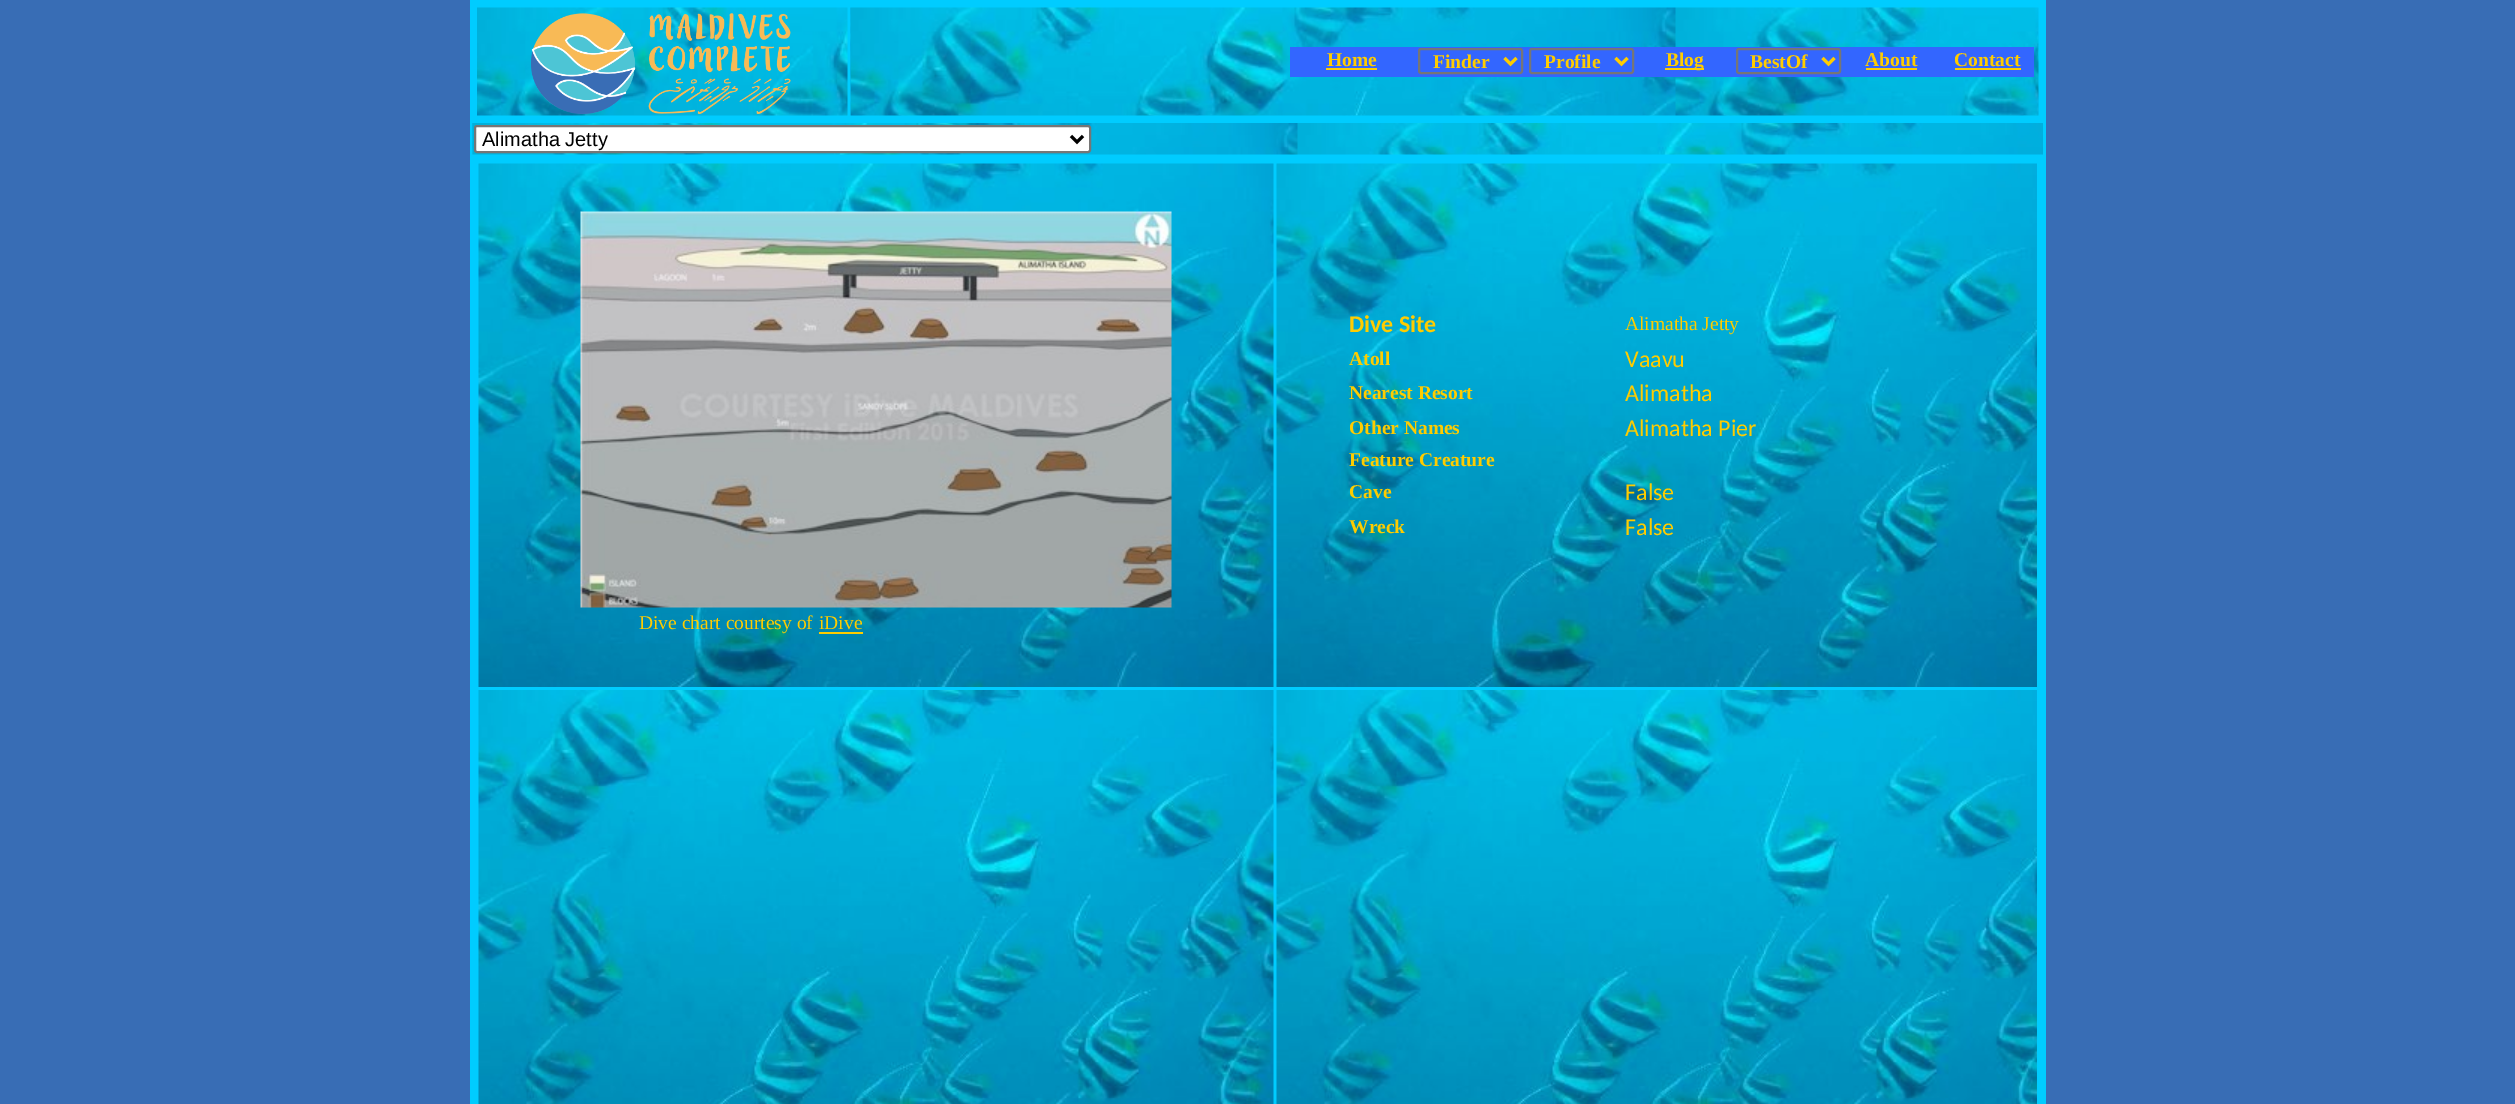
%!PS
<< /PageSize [2515 1104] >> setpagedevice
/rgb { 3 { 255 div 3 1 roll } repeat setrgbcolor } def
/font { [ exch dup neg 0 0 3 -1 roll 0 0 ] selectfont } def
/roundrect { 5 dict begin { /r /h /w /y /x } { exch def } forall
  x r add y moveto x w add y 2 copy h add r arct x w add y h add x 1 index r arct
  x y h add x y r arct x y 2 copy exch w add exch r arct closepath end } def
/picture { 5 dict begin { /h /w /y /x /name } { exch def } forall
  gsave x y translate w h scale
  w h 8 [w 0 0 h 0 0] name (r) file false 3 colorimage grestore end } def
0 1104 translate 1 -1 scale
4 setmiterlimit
56 109 181 rgb
0 0 2515 1104 rectfill
0 204 255 rgb
470 0 1576 1104 rectfill
(img/1.rgb) 477 7 371 109 picture
(img/2.rgb) 531 13 260 101 picture
(img/3.rgb) 850 7 1189 109 picture
51 102 255 rgb
1290 47 744 30 rectfill
255 204 0 rgb
1326 68 51 2 rectfill
118 118 118 rgb
2 setlinewidth
1419 49 103 24 2 roundrect stroke
255 204 0 rgb
3 setlinewidth
1504.5 58 moveto 1510.5 64 lineto 1516.5 58 lineto stroke
118 118 118 rgb
2 setlinewidth
1530 49 103 24 2 roundrect stroke
255 204 0 rgb
3 setlinewidth
1615.5 58 moveto 1621.5 64 lineto 1627.5 58 lineto stroke
1665 68 39 2 rectfill
118 118 118 rgb
2 setlinewidth
1737 49 103 24 2 roundrect stroke
255 204 0 rgb
3 setlinewidth
1822.5 58 moveto 1828.5 64 lineto 1834.5 58 lineto stroke
1866 68 51 2 rectfill
1955 68 66 2 rectfill
(img/4.rgb) 472 123 1571 32 picture
255 255 255 rgb
475 126 615 26 2 roundrect gsave fill grestore
118 118 118 rgb
2 setlinewidth
stroke
0 0 0 rgb
3 setlinewidth
1071 136 moveto 1077 142 lineto 1083 136 lineto stroke
(img/5.rgb) 1276 163 761 524 picture
(img/6.rgb) 478 163 796 524 picture
(img/7.rgb) 580 211 592 397 picture
255 204 0 rgb
819 632 44 2 rectfill
(img/8.rgb) 478 690 796 414 picture
(img/9.rgb) 1276 690 761 414 picture
/LiberationSerif-Bold 19.5 font
[
  [(Home) 1327 66]
  [(Finder) 1433 68]
  [(Profile) 1544 68]
  [(Blog) 1666 66]
  [(BestOf) 1750 68]
  [(About) 1865 66]
  [(Contact) 1954 66]
] { aload pop moveto show } forall
/LiberationSans-Regular 20 font
0 0 0 rgb
482 146 moveto (Alimatha Jetty) show
/Carlito-Bold 24 font
255 204 0 rgb
1349 332 moveto (Dive Site) show
/LiberationSerif-Regular 19.5 font
1625 330 moveto (Alimatha Jetty) show
/LiberationSerif-Bold 19.5 font
1349 365 moveto (Atoll) show
/Carlito-Regular 24 font
1625 367 moveto (Vaavu) show
/LiberationSerif-Bold 19.5 font
1349 399 moveto (Nearest Resort) show
/Carlito-Regular 24 font
1625 401 moveto (Alimatha) show
/LiberationSerif-Bold 19.5 font
1349 434 moveto (Other Names) show
/Carlito-Regular 24 font
1625 436 moveto (Alimatha Pier) show
/LiberationSerif-Bold 19.5 font
1349 466 moveto (Feature Creature) show
1349 498 moveto (Cave) show
/Carlito-Regular 24 font
1625 500 moveto (False) show
/LiberationSerif-Bold 19.5 font
1349 533 moveto (Wreck) show
/Carlito-Regular 24 font
1625 535 moveto (False) show
/LiberationSerif-Regular 19.5 font
639 629 moveto (Dive chart courtesy of) show
819 629 moveto (iDive) show
showpage
